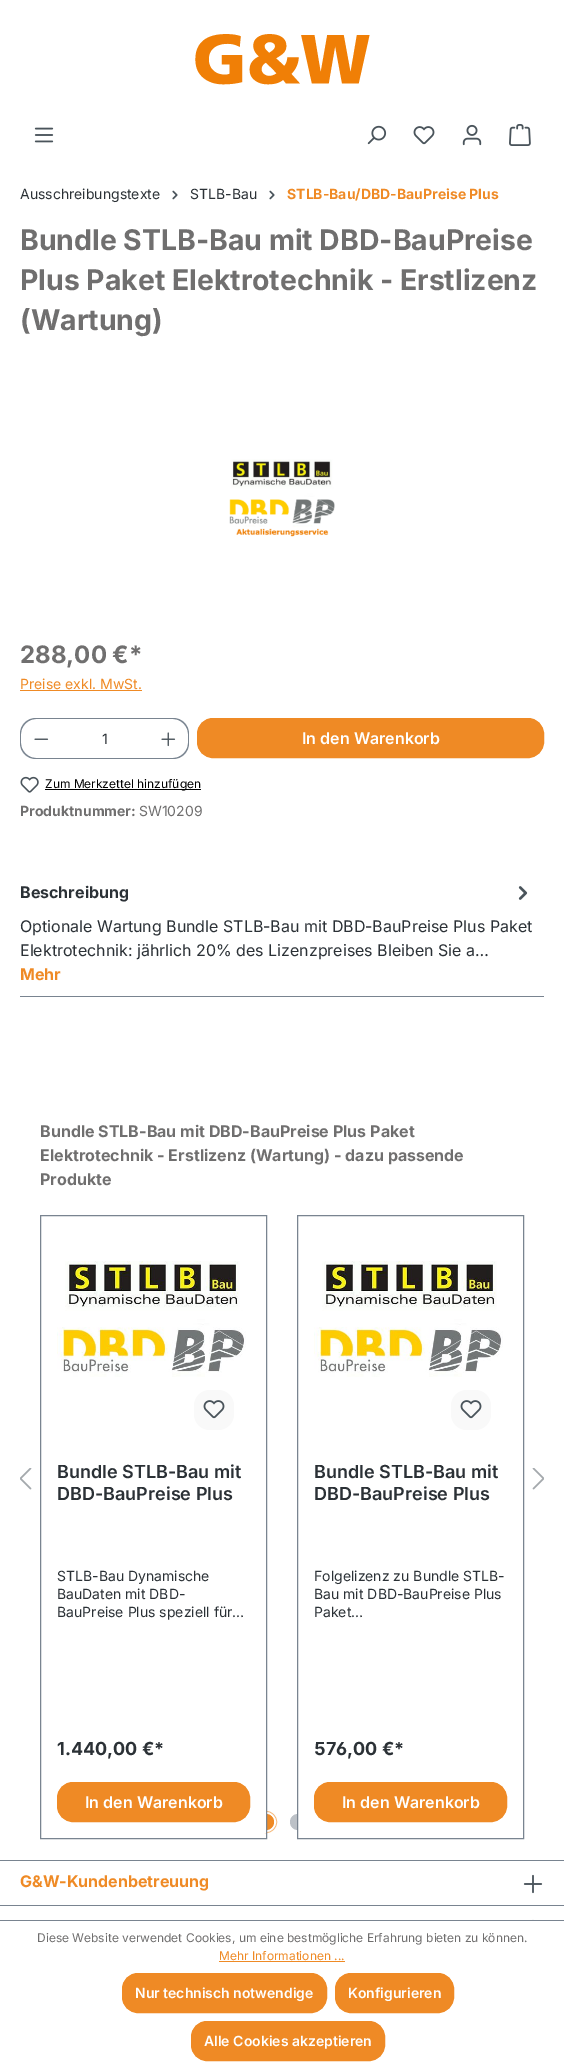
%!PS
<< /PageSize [564 2069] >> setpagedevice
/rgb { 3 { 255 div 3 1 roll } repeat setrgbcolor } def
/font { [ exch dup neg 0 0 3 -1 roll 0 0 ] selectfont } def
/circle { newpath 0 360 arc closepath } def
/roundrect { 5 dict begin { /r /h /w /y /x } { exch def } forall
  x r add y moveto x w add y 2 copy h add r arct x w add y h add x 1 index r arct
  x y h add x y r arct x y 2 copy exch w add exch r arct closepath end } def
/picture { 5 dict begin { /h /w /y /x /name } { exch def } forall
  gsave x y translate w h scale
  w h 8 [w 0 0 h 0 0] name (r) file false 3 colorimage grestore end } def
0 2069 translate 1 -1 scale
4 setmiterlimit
255 255 255 rgb
0 0 564 2069 rectfill
(img/1.rgb) 195 34 175 51 picture
(img/2.rgb) 34 127 20 16 picture
(img/3.rgb) 367 125 20 20 picture
(img/4.rgb) 413 126 22 19 picture
(img/5.rgb) 462 124 20 22 picture
(img/6.rgb) 509 124 22 22 picture
(img/7.rgb) 172 190 6 10 picture
(img/7.rgb) 269 190 6 10 picture
(img/8.rgb) 229 459 106 78 picture
[
  [20 690 122 1 239 138 37]
  [61 718 88 1 121 132 144]
  [61 758 88 1 121 132 144]
] { aload pop rgb rectfill } forall
36 718 moveto 62 718 lineto 62 759 lineto 36 759 lineto 27 759 20 752 20 743 curveto 20 734 lineto 20 725 27 718 36 718 curveto closepath 36 719 moveto 62 719 lineto 62 758 lineto 36 758 lineto 28 758 21 751 21 743 curveto 21 734 lineto 21 726 28 719 36 719 curveto closepath eofill
(img/9.rgb) 34 738 15 2 picture
148 718 moveto 173 718 lineto 182 718 189 725 189 734 curveto 189 743 lineto 189 752 182 759 173 759 curveto 148 759 lineto closepath 148 719 moveto 173 719 lineto 181 719 188 726 188 734 curveto 188 743 lineto 188 751 181 758 173 758 curveto 148 758 lineto closepath eofill
(img/10.rgb) 161 732 15 15 picture
239 138 37 rgb
197.5 718.5 346 39 15.5 roundrect gsave fill grestore
stroke
(img/11.rgb) 20 776 19 17 picture
0 0 0 rgb
45 789 156 1 rectfill
121 132 144 rgb
20 996 524 1 rectfill
(img/12.rgb) 518 886 10 14 picture
245 185 124 rgb
3 setlinewidth
266 1822 9.5 circle stroke
255 255 255 rgb
2 setlinewidth
266 1822 9 circle stroke
239 138 37 rgb
266 1822 8 circle fill
255 255 255 rgb
255 1811 11 22 rectfill
121 132 144 rgb
1 setlinewidth
40.5 1215.5 226 623 rectstroke
(img/13.rgb) 57 1261 189 116 picture
249 249 249 rgb
194 1390 40 40 16 roundrect fill
(img/14.rgb) 203 1400 22 19 picture
239 138 37 rgb
57.5 1782.5 192 39 15.5 roundrect gsave fill grestore
stroke
188 193 199 rgb
298 1822 8 circle fill
255 255 255 rgb
298 1814 8 16 rectfill
121 132 144 rgb
297.5 1215.5 226 623 rectstroke
(img/13.rgb) 314 1261 189 116 picture
249 249 249 rgb
451 1390 40 40 16 roundrect fill
(img/14.rgb) 460 1400 22 19 picture
239 138 37 rgb
314.5 1782.5 192 39 15.5 roundrect gsave fill grestore
stroke
(img/15.rgb) 20 1468 12 22 picture
(img/16.rgb) 532 1468 12 22 picture
121 132 144 rgb
0 1860 564 1 rectfill
0 1905 564 1 rectfill
(img/17.rgb) 523 1874 20 20 picture
(img/18.rgb) 532 1919 2 1 picture
0 1920 564 1 rectfill
239 138 37 rgb
219 1961 126 1 rectfill
122.5 1973.5 204 39 15.5 roundrect gsave fill grestore
stroke
335.5 1973.5 118 39 15.5 roundrect gsave fill grestore
stroke
191.5 2021.5 193 39 15.5 roundrect gsave fill grestore
stroke
/Inter-Regular 14 font
43 49 54 rgb
20 199 moveto (Ausschreibungstexte) show
190 199 moveto (STLB-Bau) show
/Inter-Bold 14 font
239 138 37 rgb
287 199 moveto (STLB-Bau/DBD-BauPreise Plus) show
/Inter-Bold 28.4 font
112 111 111 rgb
[
  [(Bundle STLB-Bau mit DBD-BauPreise) 20 250]
  [(Plus Paket Elektrotechnik - Erstlizenz) 20 290]
  [(\(Wartung\)) 20 330]
] { aload pop moveto show } forall
/Inter-Bold 24 font
20 663 moveto (288,00 €*) show
/Inter-Regular 14 font
239 138 37 rgb
20 689 moveto (Preise exkl. MwSt.) show
43 49 54 rgb
102 744 moveto (1) show
/Inter-SemiBold 16 font
255 255 255 rgb
302 744 moveto (In den Warenkorb) show
/Inter-Regular 12 font
0 0 0 rgb
45 788 moveto (Zum Merkzettel hinzufügen) show
/Inter-Bold 14 font
112 111 111 rgb
20 816 moveto (Produktnummer:) show
/Inter-Regular 14 font
139 816 moveto (SW10209) show
/Inter-Bold 16 font
43 49 54 rgb
20 898 moveto (Beschreibung) show
/Inter-Regular 16 font
20 932 moveto (Optionale Wartung Bundle STLB-Bau mit DBD-BauPreise Plus Paket) show
20 956 moveto (Elektrotechnik: jährlich 20% des Lizenzpreises Bleiben Sie a…) show
/Inter-Bold 16 font
239 138 37 rgb
20 980 moveto (Mehr) show
112 111 111 rgb
[
  [(Bundle STLB-Bau mit DBD-BauPreise Plus Paket) 40 1137]
  [(Elektrotechnik - Erstlizenz \(Wartung\) - dazu passende) 40 1161]
  [(Produkte) 40 1185]
] { aload pop moveto show } forall
/Inter-SemiBold 18 font
43 49 54 rgb
57 1478 moveto (Bundle STLB-Bau mit) show
57 1500 moveto (DBD-BauPreise Plus) show
/Inter-Regular 14 font
[
  [(STLB-Bau Dynamische) 57 1581]
  [(BauDaten mit DBD-) 57 1599]
  [(BauPreise Plus speziell für…) 57 1617]
] { aload pop moveto show } forall
/Inter-Bold 18 font
57 1755 moveto (1.440,00 €*) show
/Inter-SemiBold 16 font
255 255 255 rgb
85 1808 moveto (In den Warenkorb) show
/Inter-SemiBold 18 font
43 49 54 rgb
314 1478 moveto (Bundle STLB-Bau mit) show
314 1500 moveto (DBD-BauPreise Plus) show
/Inter-Regular 14 font
[
  [(Folgelizenz zu Bundle STLB-) 314 1581]
  [(Bau mit DBD-BauPreise Plus) 314 1599]
  [(Paket…) 314 1617]
] { aload pop moveto show } forall
/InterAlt-Bold 18 font
314 1755 moveto (576,00 €*) show
/Inter-SemiBold 16 font
255 255 255 rgb
342 1808 moveto (In den Warenkorb) show
/Inter-Bold 16 font
239 138 37 rgb
20 1887 moveto (G&W-Kundenbetreuung) show
/Inter-Regular 12 font
112 111 111 rgb
37 1942 moveto (Diese Website verwendet Cookies, um eine bestmögliche Erfahrung bieten zu können.) show
239 138 37 rgb
219 1960 moveto (Mehr Informationen ...) show
/Inter-SemiBold 14 font
255 255 255 rgb
[
  [(Nur technisch notwendige) 135 1998]
  [(Konfigurieren) 348 1998]
  [(Alle Cookies akzeptieren) 204 2046]
] { aload pop moveto show } forall
showpage
